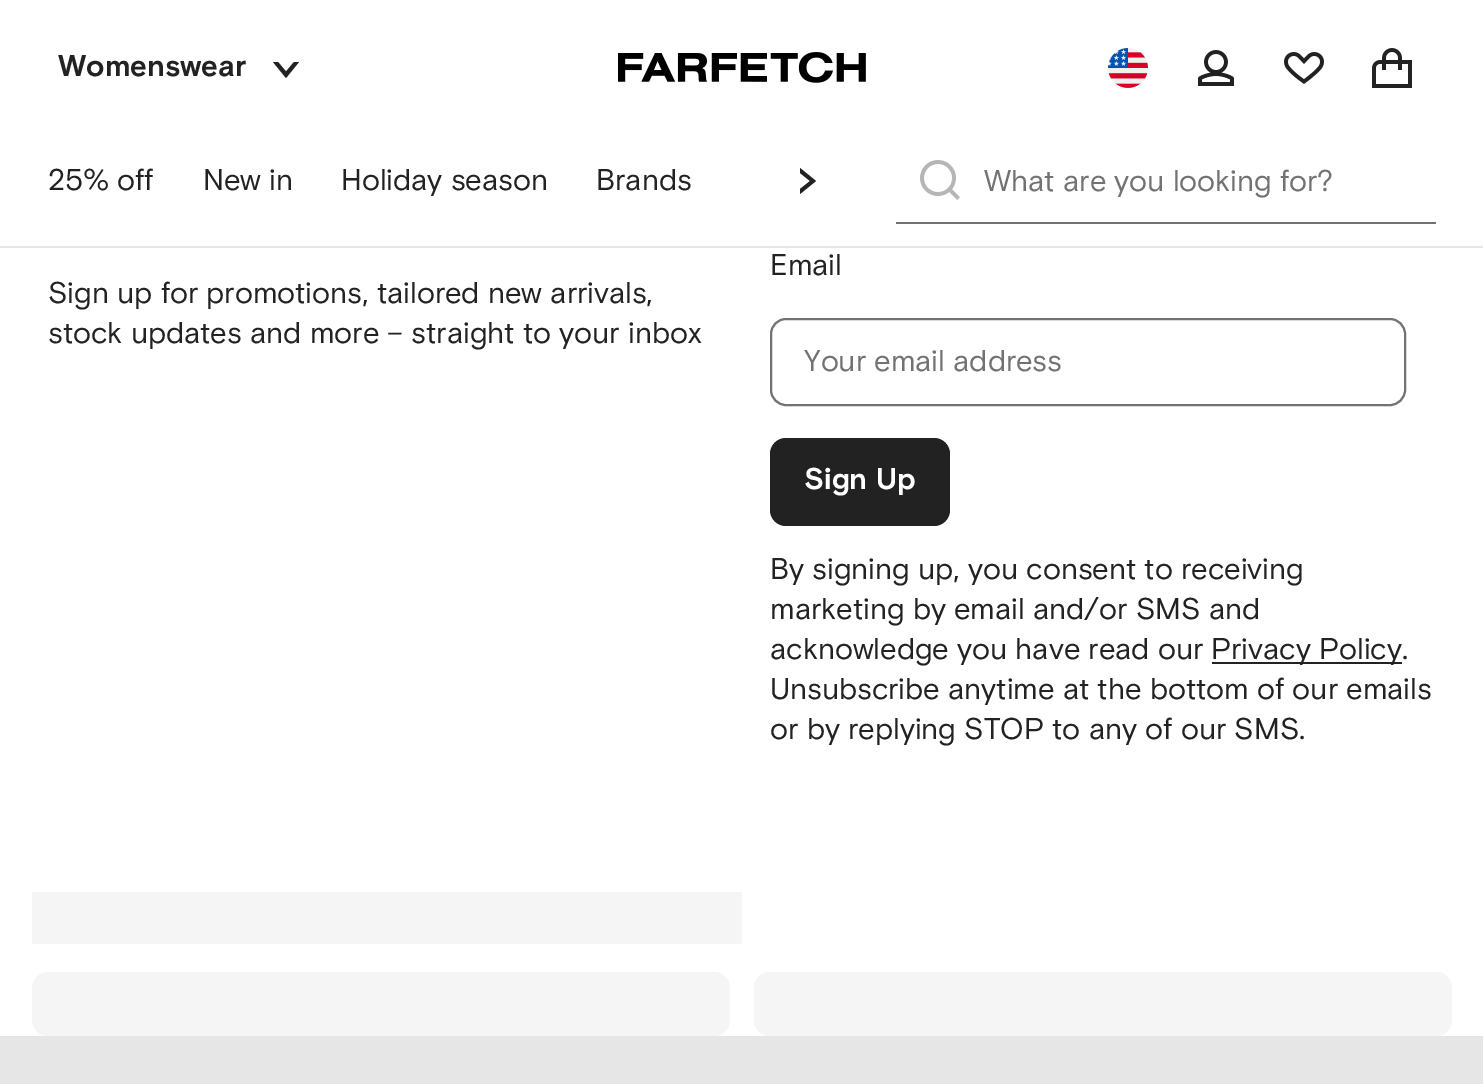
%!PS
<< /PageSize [1483 1084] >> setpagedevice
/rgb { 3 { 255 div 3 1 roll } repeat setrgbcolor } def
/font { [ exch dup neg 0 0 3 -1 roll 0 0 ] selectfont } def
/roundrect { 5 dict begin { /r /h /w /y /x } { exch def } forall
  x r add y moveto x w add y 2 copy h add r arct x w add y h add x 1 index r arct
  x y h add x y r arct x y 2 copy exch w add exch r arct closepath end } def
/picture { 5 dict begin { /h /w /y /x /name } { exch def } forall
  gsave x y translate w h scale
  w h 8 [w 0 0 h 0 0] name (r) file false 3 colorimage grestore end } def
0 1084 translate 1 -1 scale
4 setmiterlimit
255 255 255 rgb
0 0 1483 1084 rectfill
34 34 34 rgb
273 62 moveto 286 78 lineto 299 62 lineto 294 62 lineto 286 71.5 lineto 278 62 lineto closepath eofill
(img/1.rgb) 618 52 248 31 picture
(img/2.rgb) 1108 48 40 40 picture
(img/3.rgb) 1198 50 36 36 picture
(img/4.rgb) 1284 52 40 32 picture
(img/5.rgb) 1372 48 40 40 picture
800 194 moveto 816 181 lineto 800 168 lineto 800 173 lineto 810 181 lineto 800 189 lineto closepath eofill
114 114 114 rgb
896 222 540 2 rectfill
(img/6.rgb) 920 160 40 40 picture
230 230 230 rgb
0 246 1483 2 rectfill
114 114 114 rgb
2 setlinewidth
771 319 634 86 15 roundrect stroke
34 34 34 rgb
770 438 180 88 16 roundrect fill
1212 662 190 2 rectfill
245 245 245 rgb
32 892 710 52 rectfill
32 972 698 64 16 roundrect fill
754 972 698 64 16 roundrect fill
230 230 230 rgb
0 1036 1483 48 rectfill
/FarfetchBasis-Bold 30 font
34 34 34 rgb
58 76 moveto (Womenswear) show
/FarfetchBasis-Regular 30 font
48 190 moveto -1 0 32 (25% off) widthshow
[
  [(New in) 203 190]
  [(Holiday season) 341 190]
  [(Brands) 596 190]
] { aload pop moveto show } forall
114 114 114 rgb
984 191 moveto (What are you looking for?) show
34 34 34 rgb
[
  [(Sign up for promotions, tailored new arrivals,) 48 303]
  [(stock updates and more – straight to your inbox) 48 343]
  [(Email) 770 275]
] { aload pop moveto show } forall
114 114 114 rgb
804 371 moveto (Your email address) show
/FarfetchBasis-Bold 30 font
255 255 255 rgb
804 489 moveto (Sign Up) show
/FarfetchBasis-Regular 30 font
34 34 34 rgb
[
  [(By signing up, you consent to receiving) 770 579]
  [(marketing by email and/or SMS and) 770 619]
  [(acknowledge you have read our) 770 659]
  [(Privacy Policy.) 1211 659]
  [(Unsubscribe anytime at the bottom of our emails) 770 699]
  [(or by replying STOP to any of our SMS.) 770 739]
] { aload pop moveto show } forall
showpage
